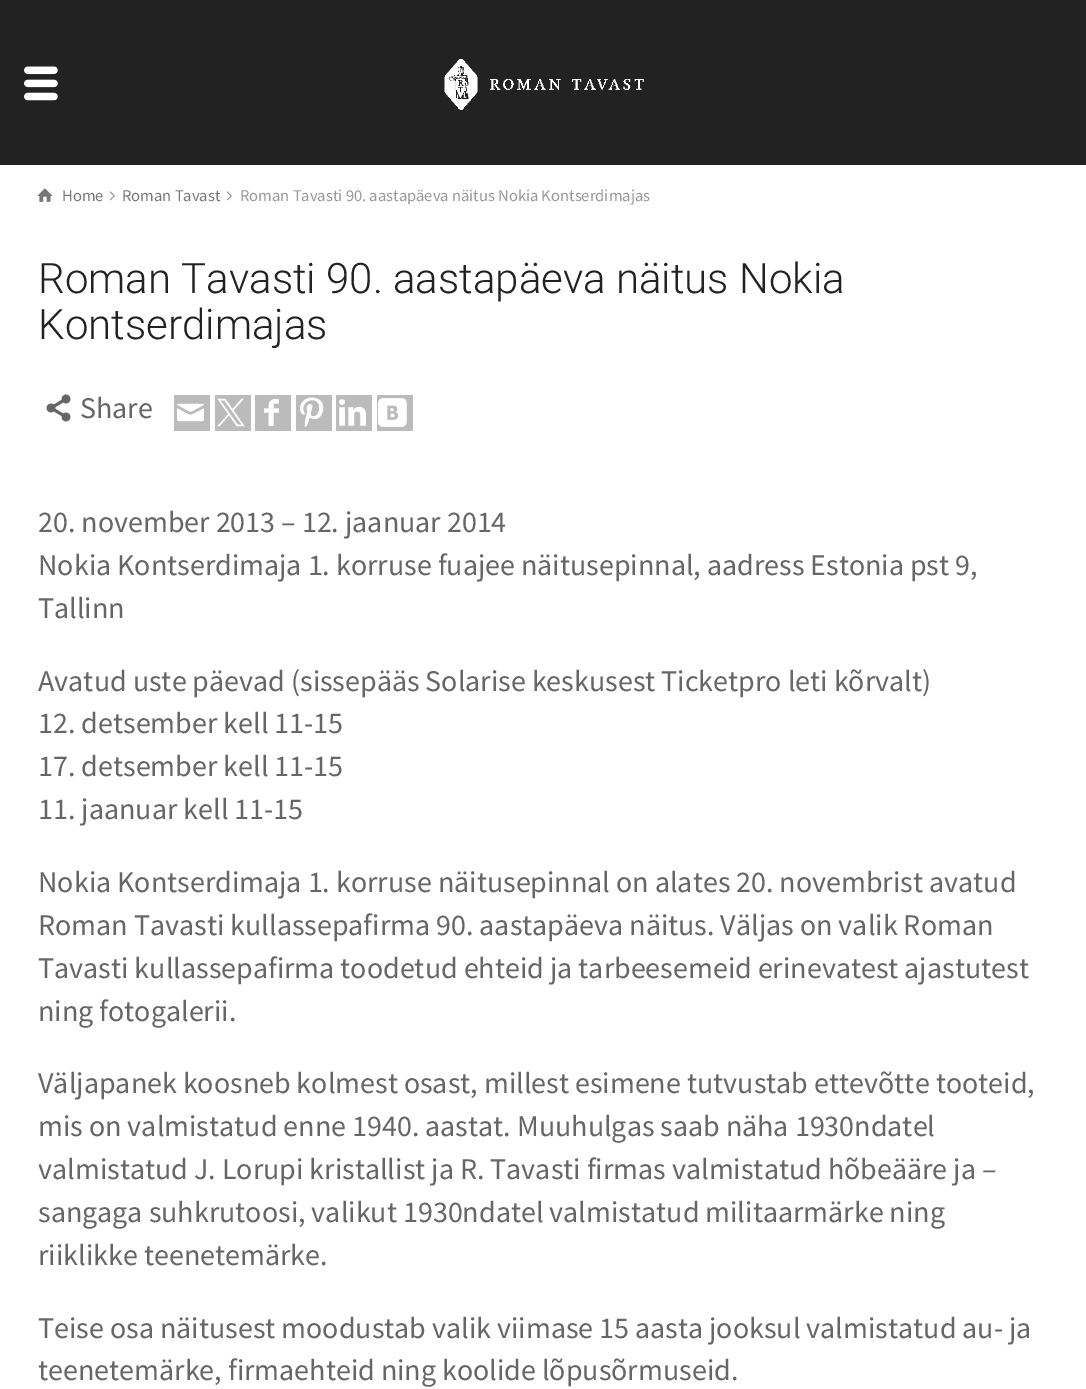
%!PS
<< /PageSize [1086 1389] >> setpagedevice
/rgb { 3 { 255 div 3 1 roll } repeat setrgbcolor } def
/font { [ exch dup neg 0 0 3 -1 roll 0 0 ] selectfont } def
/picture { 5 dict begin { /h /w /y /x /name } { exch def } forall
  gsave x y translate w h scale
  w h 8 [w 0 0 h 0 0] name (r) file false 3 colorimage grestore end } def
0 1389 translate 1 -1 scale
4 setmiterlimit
255 255 255 rgb
0 0 1086 1389 rectfill
34 34 34 rgb
0 0 1086 165 rectfill
(img/1.rgb) 24 66 34 35 picture
(img/2.rgb) 444 59 200 51 picture
(img/3.rgb) 37 188 16 14 picture
(img/4.rgb) 109 191 6 10 picture
(img/4.rgb) 226 191 6 10 picture
(img/5.rgb) 46 394 25 28 picture
187 187 187 rgb
174 395 36 36 rectfill
(img/6.rgb) 177 403 27 19 picture
215 395 36 36 rectfill
(img/7.rgb) 217 398 28 29 picture
255 395 36 36 rectfill
(img/8.rgb) 264 399 15 27 picture
296 395 36 36 rectfill
(img/9.rgb) 300 397 24 31 picture
336 395 36 36 rectfill
(img/10.rgb) 339 399 27 27 picture
377 395 36 36 rectfill
(img/11.rgb) 378 398 29 29 picture
/SourceSansPro-Regular 16.5 font
119 119 119 rgb
62 201 moveto (Home) show
122 201 moveto (Roman Tavast) show
153 153 153 rgb
240 201 moveto (Roman Tavasti 90. aastapäeva näitus Nokia Kontserdimajas) show
/Roboto-Light 42 font
34 34 34 rgb
38 293 moveto (Roman Tavasti 90. aastapäeva näitus Nokia) show
38 339 moveto (Kontserdimajas) show
/SourceSansPro-Regular 30 font
102 102 102 rgb
[
  [(Share) 80 418]
  [(20. november 2013 – 12. jaanuar 2014) 38 532]
  [(Nokia Kontserdimaja 1. korruse fuajee näitusepinnal, aadress Estonia pst 9,) 38 575]
  [(Tallinn) 38 618]
  [(Avatud uste päevad \(sissepääs Solarise keskusest Ticketpro leti kõrvalt\)) 38 691]
  [(12. detsember kell 11-15) 38 733]
  [(17. detsember kell 11-15) 38 776]
  [(11. jaanuar kell 11-15) 38 819]
  [(Nokia Kontserdimaja 1. korruse näitusepinnal on alates 20. novembrist avatud) 38 892]
  [(Roman Tavasti kullassepafirma 90. aastapäeva näitus. Väljas on valik Roman) 38 935]
  [(Tavasti kullassepafirma toodetud ehteid ja tarbeesemeid erinevatest ajastutest) 38 978]
  [(ning fotogalerii.) 38 1021]
  [(Väljapanek koosneb kolmest osast, millest esimene tutvustab ettevõtte tooteid,) 38 1093]
  [(mis on valmistatud enne 1940. aastat. Muuhulgas saab näha 1930ndatel) 38 1136]
  [(valmistatud J. Lorupi kristallist ja R. Tavasti firmas valmistatud hõbeääre ja –) 38 1179]
  [(sangaga suhkrutoosi, valikut 1930ndatel valmistatud militaarmärke ning) 38 1222]
  [(riiklikke teenetemärke.) 38 1265]
  [(Teise osa näitusest moodustab valik viimase 15 aasta jooksul valmistatud au- ja) 38 1338]
  [(teenetemärke, firmaehteid ning koolide lõpusõrmuseid.) 38 1380]
] { aload pop moveto show } forall
showpage
